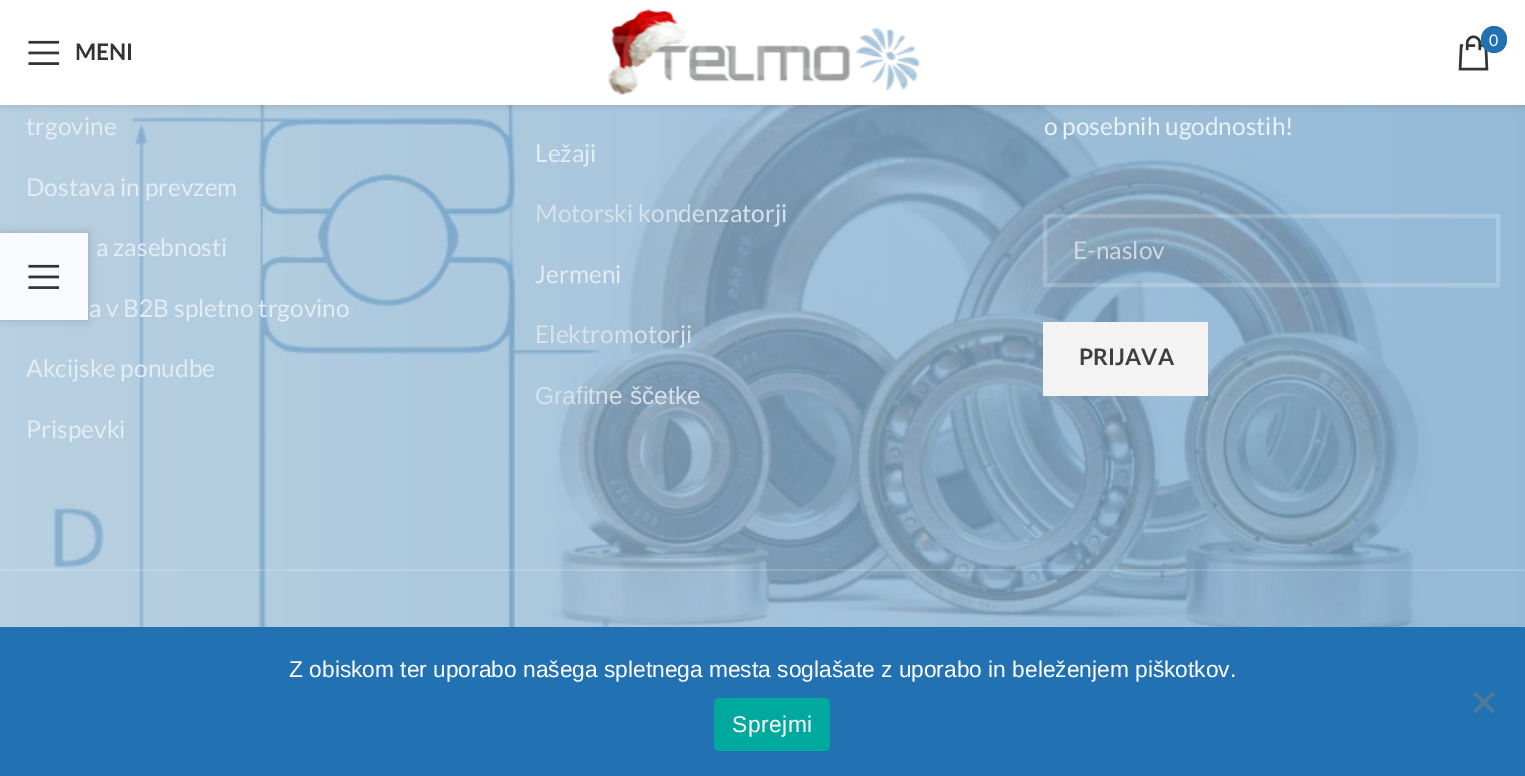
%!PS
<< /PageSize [1525 776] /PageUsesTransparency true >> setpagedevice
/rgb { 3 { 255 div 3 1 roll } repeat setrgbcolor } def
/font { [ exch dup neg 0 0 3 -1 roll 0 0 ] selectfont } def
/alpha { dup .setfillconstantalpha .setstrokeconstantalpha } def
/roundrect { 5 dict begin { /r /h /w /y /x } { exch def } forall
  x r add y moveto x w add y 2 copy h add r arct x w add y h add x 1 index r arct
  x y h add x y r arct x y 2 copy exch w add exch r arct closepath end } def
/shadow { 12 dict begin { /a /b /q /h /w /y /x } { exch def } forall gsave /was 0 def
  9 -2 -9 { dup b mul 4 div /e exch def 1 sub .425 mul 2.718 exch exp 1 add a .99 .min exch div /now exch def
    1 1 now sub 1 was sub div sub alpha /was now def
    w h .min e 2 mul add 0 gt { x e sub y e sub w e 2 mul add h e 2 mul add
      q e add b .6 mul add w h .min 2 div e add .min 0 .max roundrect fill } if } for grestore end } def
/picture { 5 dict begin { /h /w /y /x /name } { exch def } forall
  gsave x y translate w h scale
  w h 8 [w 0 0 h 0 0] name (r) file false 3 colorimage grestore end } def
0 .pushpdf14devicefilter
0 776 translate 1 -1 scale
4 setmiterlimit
255 255 255 rgb
0 0 1525 776 rectfill
(img/4.rgb) 0 105 1525 522 picture
0 0 0 rgb
0 2 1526 105 0 2.5 0.1 shadow
255 255 255 rgb
0 0 1525 105 rectfill
(img/1.rgb) 607 8 313 88 picture
(img/2.rgb) 1458 35 31 36 picture
34 113 178 rgb
1481 26 26 27 13 roundrect fill
(img/3.rgb) 28 40 32 25 picture
0.2 alpha
255 255 255 rgb
4 setlinewidth
1045 216 453 69 rectstroke
1 alpha
243 243 243 rgb
1043 322 165 74 rectfill
0.15 alpha
255 255 255 rgb
0 569 1525 2 rectfill
gsave
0 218 moveto 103 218 lineto 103 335 lineto 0 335 lineto closepath 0 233 moveto 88 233 lineto 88 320 lineto 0 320 lineto closepath eoclip newpath
1 alpha
0 0 0 rgb
0 233 88 87 0 4.5 0.17 shadow
grestore
0.9 alpha
0 233 88 87 rectfill
1 alpha
(img/5.rgb) 28 264 32 25 picture
34 113 178 rgb
0 627 1525 149 rectfill
81 121 153 rgb
1492 692 moveto 1494.5 694.5 lineto 1476 713 lineto 1473.5 710.5 lineto closepath fill
1473.5 694.5 moveto 1476 692 lineto 1494.5 710.5 lineto 1492 713 lineto closepath fill
0 169 157 rgb
714 698 116 53 5 roundrect fill
/Lato-Regular 16 font
255 255 255 rgb
1489 46 moveto (0) show
/Lato-Bold 22.75 font
51 51 51 rgb
75 60 moveto (MENI) show
/Lato-Regular 24.5 font
226 236 243 rgb
[
  [(trgovine) 26 135]
  [(Dostava in prevzem) 26 196]
  [(a zasebnosti) 96 256]
  [(a v B2B spletno trgovino) 89 317]
  [(Akcijske ponudbe) 26 377]
  [(Prispevki) 26 438]
  [(Ležaji) 535 162]
] { aload pop moveto show } forall
214 225 234 rgb
535 222 moveto (Motorski kondenzatorji) show
226 236 243 rgb
535 283 moveto (Jermeni) show
214 225 234 rgb
535 343 moveto (Elektromotorji) show
/LiberationSans-Regular 24.5 font
535 404 moveto 1 0 32 (Grafitne ščetke) widthshow
/Lato-Regular 24.5 font
235 242 247 rgb
1044 135 moveto (o posebnih ugodnostih!) show
205 216 225 rgb
1073 259 moveto (E-naslov) show
/Lato-Bold 22.75 font
62 62 62 rgb
1079 365 moveto (PRIJAVA) show
/LiberationSans-Regular 22.75 font
255 255 255 rgb
289 677 moveto (Z obiskom ter uporabo našega spletnega mesta soglašate z uporabo in beleženjem piškotkov.) show
732 732 moveto 0.5 0 (Sprejmi) ashow
.poppdf14devicefilter showpage
